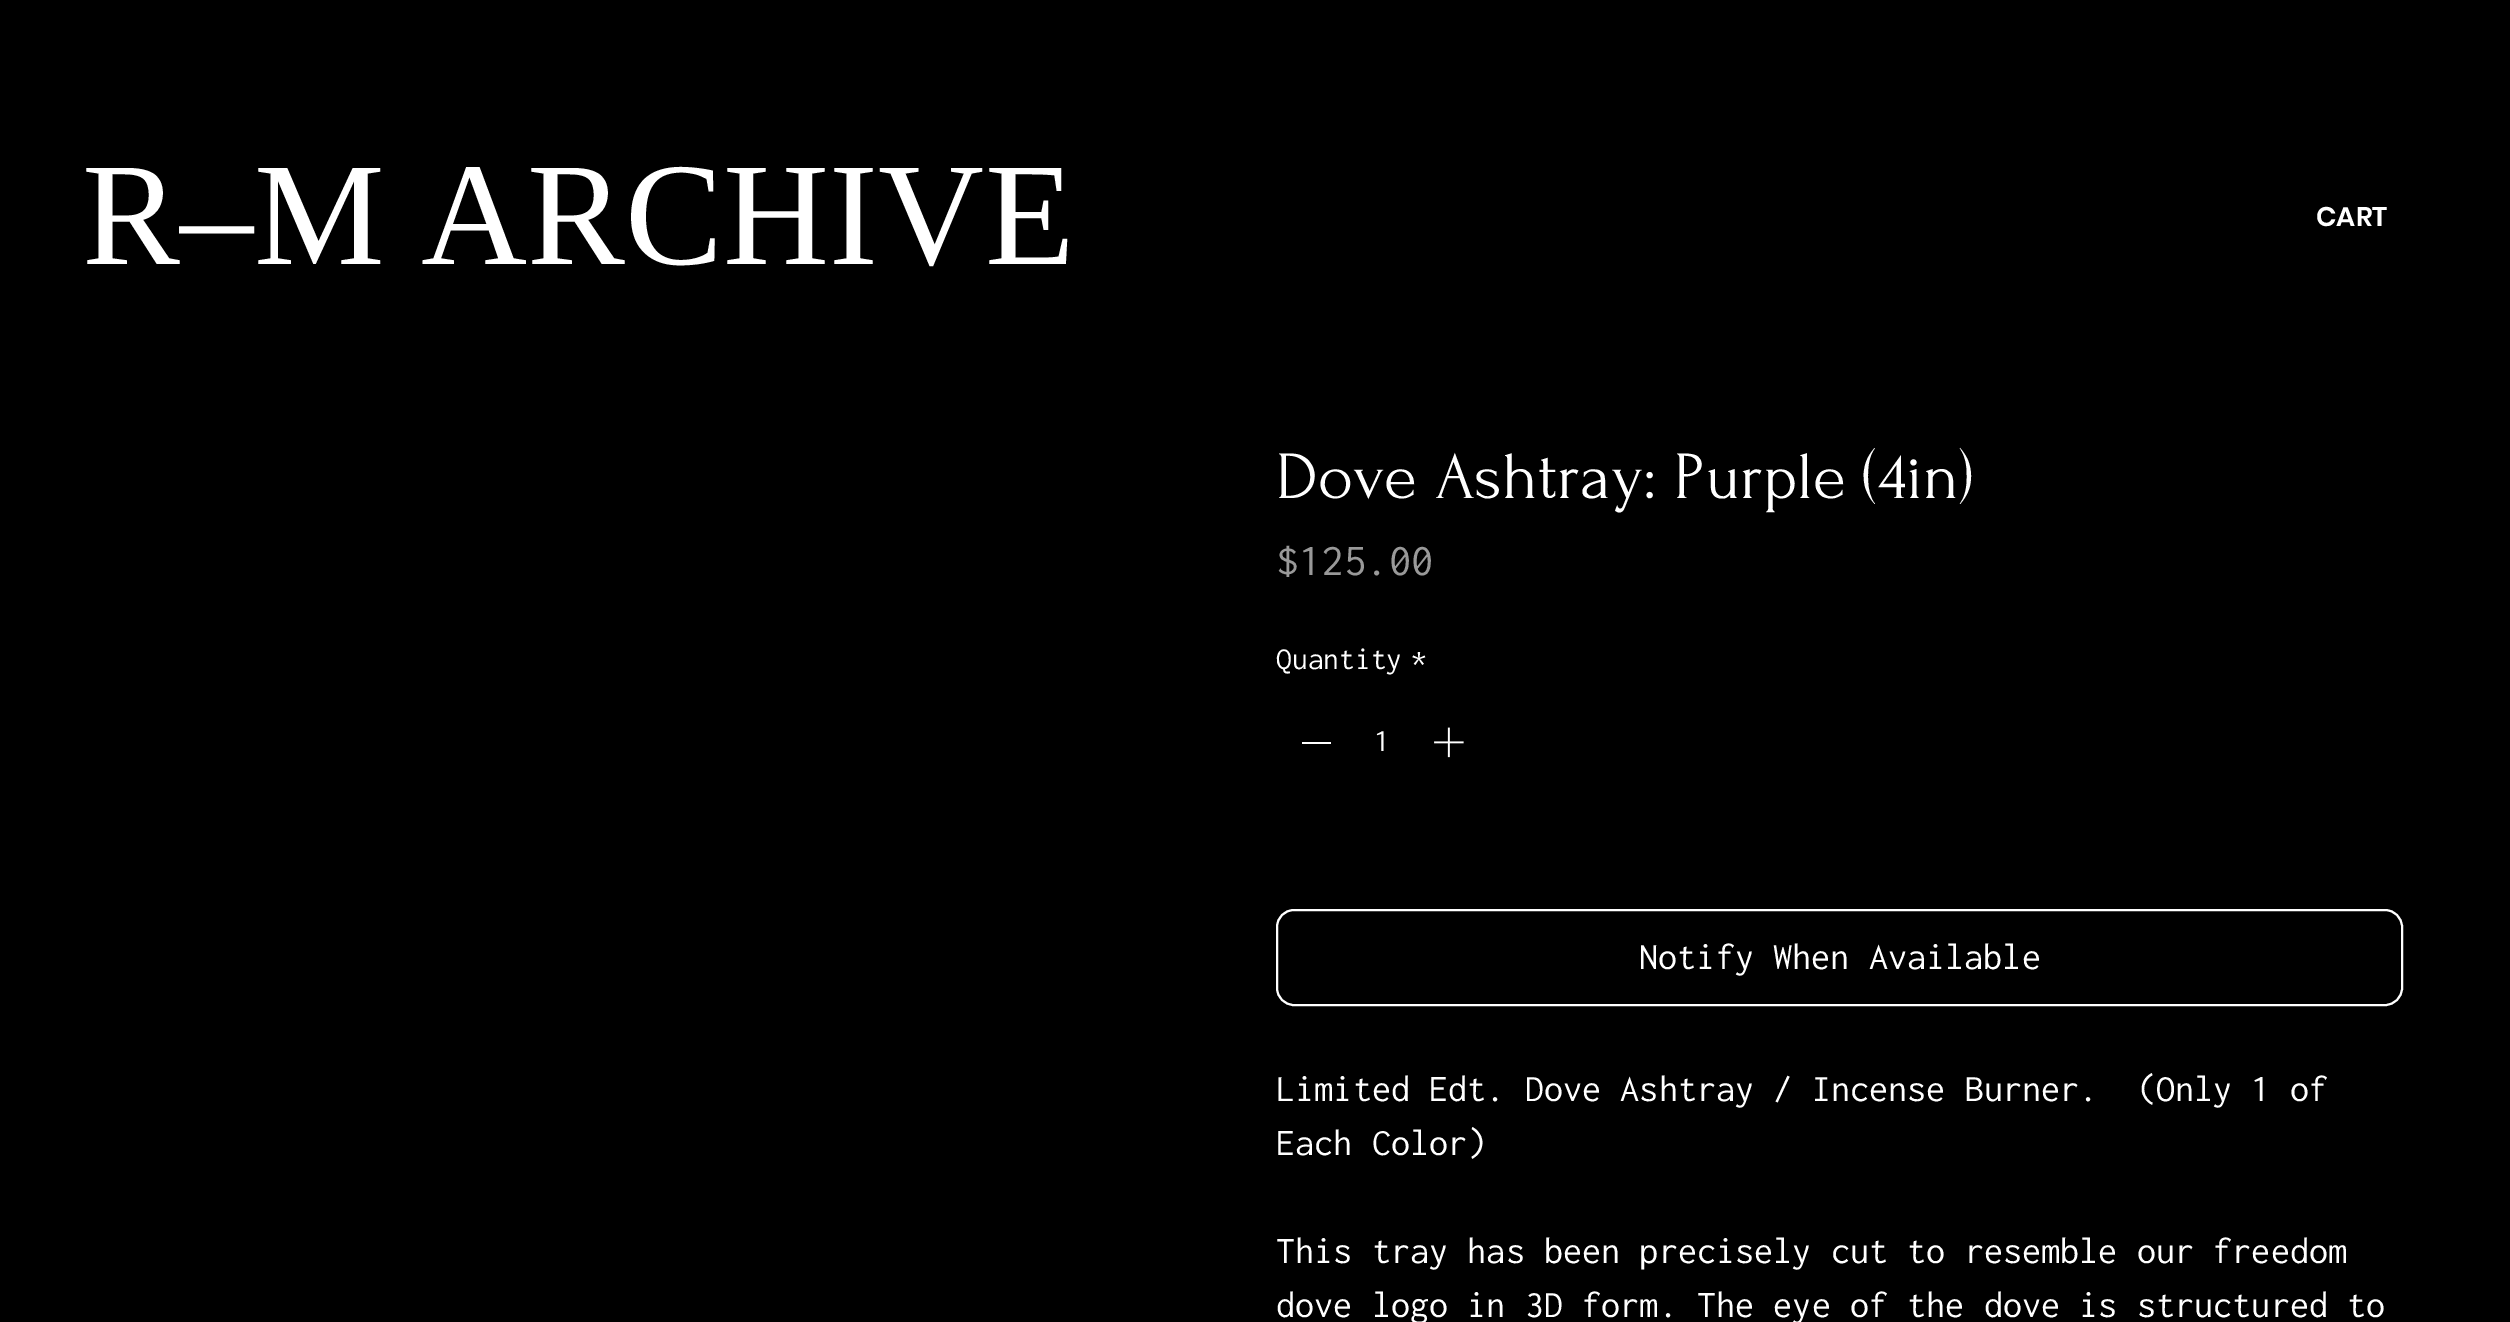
%!PS
<< /PageSize [2510 1322] >> setpagedevice
/rgb { 3 { 255 div 3 1 roll } repeat setrgbcolor } def
/font { [ exch dup neg 0 0 3 -1 roll 0 0 ] selectfont } def
/roundrect { 5 dict begin { /r /h /w /y /x } { exch def } forall
  x r add y moveto x w add y 2 copy h add r arct x w add y h add x 1 index r arct
  x y h add x y r arct x y 2 copy exch w add exch r arct closepath end } def
/picture { 5 dict begin { /h /w /y /x /name } { exch def } forall
  gsave x y translate w h scale
  w h 8 [w 0 0 h 0 0] name (r) file false 3 colorimage grestore end } def
0 1322 translate 1 -1 scale
4 setmiterlimit
0 0 0 rgb
0 0 2510 1322 rectfill
255 255 255 rgb
1302 742 29 2 rectfill
(img/1.rgb) 1434 727 30 31 picture
2 setlinewidth
1277 910 1125 95 17 roundrect stroke
/LiberationSerif-Regular 147 font
82 264 moveto (R–M ARCHIVE) show
/Poppins-SemiBold 27 font
2316 226 moveto (CART) show
/Forum-Regular 67.5 font
1276 498 moveto (Dove Ashtray: Purple \(4in\)) show
/Inconsolata-Regular 45 font
153 153 153 rgb
1276 575 moveto ($125.00) show
/Inconsolata-Regular 31.5 font
255 255 255 rgb
[
  [(Quantity) 1276 669]
  [(*) 1411 669]
  [(1) 1374 751]
] { aload pop moveto show } forall
/Inconsolata-Regular 38.25 font
[
  [(Notify When Available) 1639 969]
  [(Limited Edt. Dove Ashtray / Incense Burner.  \(Only 1 of) 1276 1101]
  [(Each Color\)) 1276 1155]
  [(This tray has been precisely cut to resemble our freedom) 1276 1263]
  [(dove logo in 3D form. The eye of the dove is structured to) 1276 1317]
] { aload pop moveto show } forall
showpage
